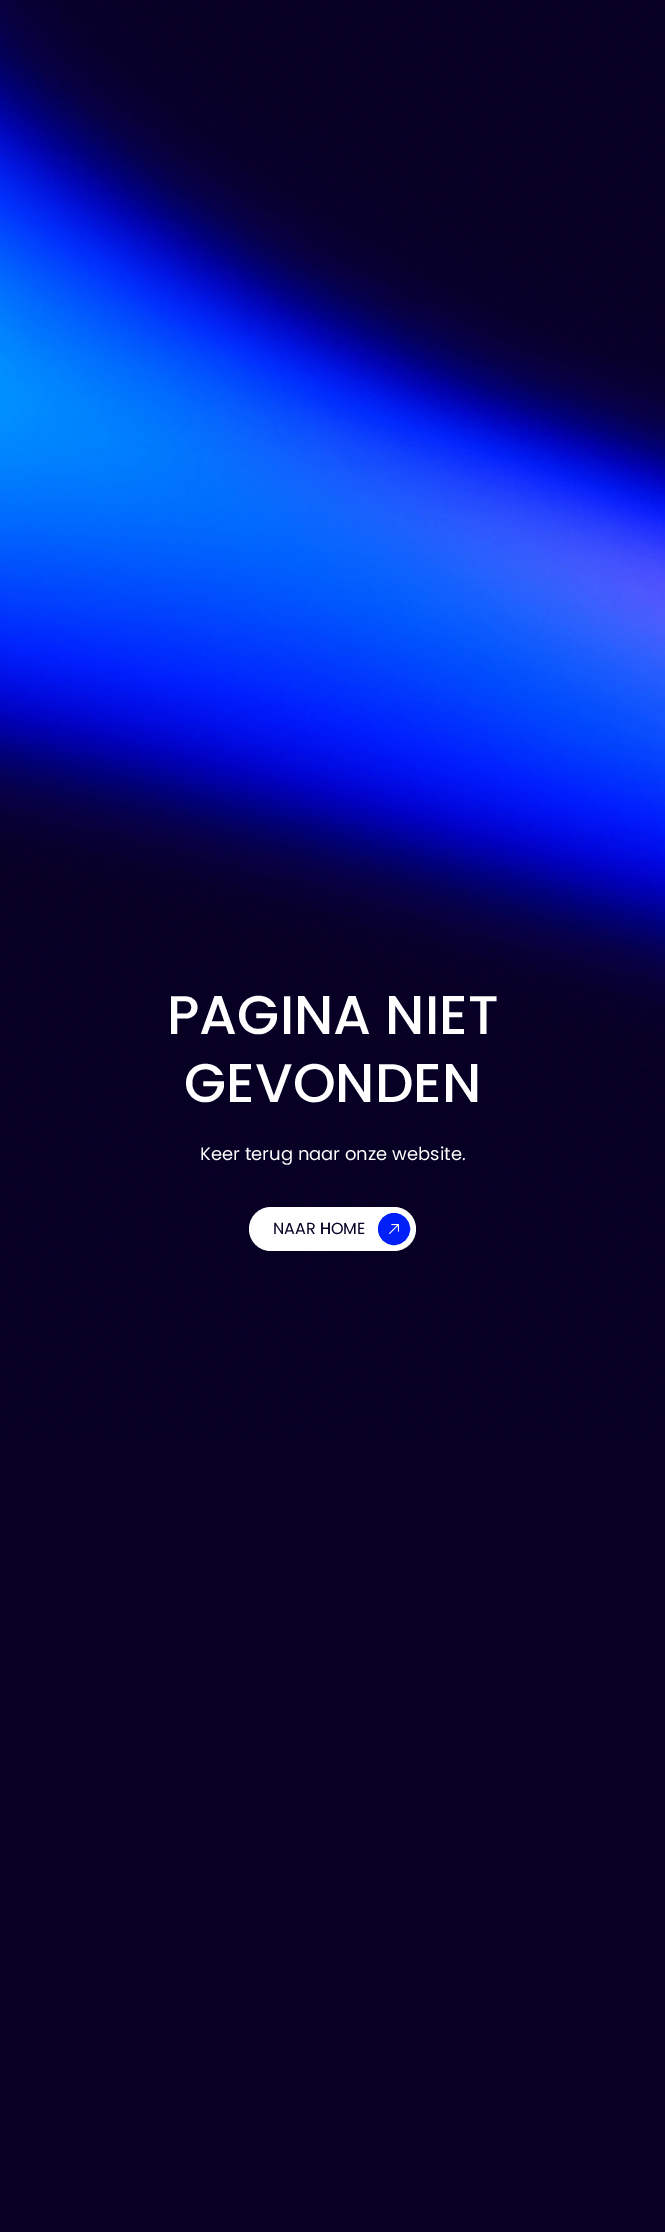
%!PS
<< /PageSize [665 2232] >> setpagedevice
/rgb { 3 { 255 div 3 1 roll } repeat setrgbcolor } def
/font { [ exch dup neg 0 0 3 -1 roll 0 0 ] selectfont } def
/circle { newpath 0 360 arc closepath } def
/roundrect { 5 dict begin { /r /h /w /y /x } { exch def } forall
  x r add y moveto x w add y 2 copy h add r arct x w add y h add x 1 index r arct
  x y h add x y r arct x y 2 copy exch w add exch r arct closepath end } def
/picture { 5 dict begin { /h /w /y /x /name } { exch def } forall
  gsave x y translate w h scale
  w h 8 [w 0 0 h 0 0] name (r) file false 3 colorimage grestore end } def
0 2232 translate 1 -1 scale
4 setmiterlimit
8 1 37 rgb
0 0 665 2232 rectfill
(img/1.rgb) 0 0 665 1441 picture
255 255 255 rgb
249 1207 167 44 22 roundrect fill
0 32 247 rgb
394 1229 15.5 circle gsave fill grestore
stroke
(img/2.rgb) 389 1224 10 10 picture
/Poppins-Medium 54.5 font
255 255 255 rgb
167 1034 moveto (PAGINA NIET) show
184 1102 moveto (GEVONDEN) show
/Poppins-Regular 18 font
200 1160 moveto (Keer terug naar onze website.) show
/Poppins-Regular 16 font
8 1 37 rgb
273 1234 moveto (NAAR HOME) show
320 1234 moveto (H) show
showpage
